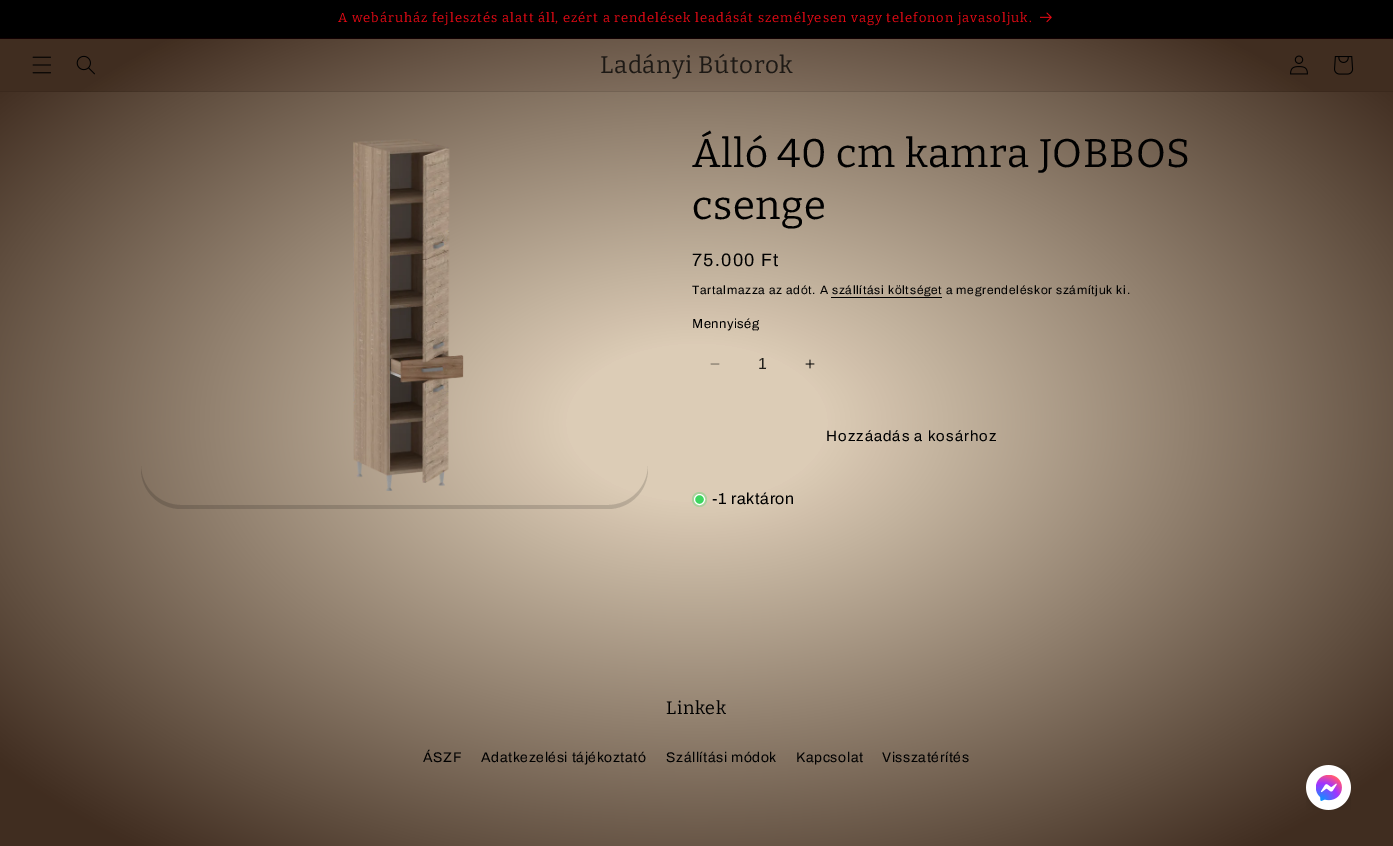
%!PS
<< /PageSize [1393 846] /PageUsesTransparency true >> setpagedevice
/rgb { 3 { 255 div 3 1 roll } repeat setrgbcolor } def
/font { [ exch dup neg 0 0 3 -1 roll 0 0 ] selectfont } def
/alpha { dup .setfillconstantalpha .setstrokeconstantalpha } def
/circle { newpath 0 360 arc closepath } def
/picture { 5 dict begin { /h /w /y /x /name } { exch def } forall
  gsave x y translate w h scale
  w h 8 [w 0 0 h 0 0] name (r) file false 3 colorimage grestore end } def
0 .pushpdf14devicefilter
0 846 translate 1 -1 scale
4 setmiterlimit
255 255 255 rgb
0 0 1393 846 rectfill
0 0 0 rgb
0 0 1393 38 rectfill
18 1 2 rgb
0 38 1393 1 rectfill
(img/1.rgb) 1040 12 12 11 picture
gsave 0 39 moveto 1393 39 lineto 1393 91 lineto 0 91 lineto closepath clip newpath 697 423 translate 985 598 scale
<< /ShadingType 3 /ColorSpace /DeviceRGB /Coords [0 0 0 0 0 1] /Extend [true true] /Function << /FunctionType 3 /Domain [0 1] /Functions [<< /FunctionType 2 /Domain [0 1] /C0 [0.863 0.8 0.714] /C1 [0.863 0.8 0.714] /N 1 >> << /FunctionType 2 /Domain [0 1] /C0 [0.863 0.8 0.714] /C1 [0.251 0.176 0.125] /N 1 >> << /FunctionType 2 /Domain [0 1] /C0 [0.251 0.176 0.125] /C1 [0.251 0.176 0.125] /N 1 >>] /Bounds [0.13 0.84] /Encode [0 1 0 1 0 1] >> >> shfill grestore
gsave 0 91 moveto 1393 91 lineto 1393 92 lineto 0 92 lineto closepath clip newpath 697 423 translate 985 598 scale
<< /ShadingType 3 /ColorSpace /DeviceRGB /Coords [0 0 0 0 0 1] /Extend [true true] /Function << /FunctionType 3 /Domain [0 1] /Functions [<< /FunctionType 2 /Domain [0 1] /C0 [0.792 0.737 0.655] /C1 [0.792 0.737 0.655] /N 1 >> << /FunctionType 2 /Domain [0 1] /C0 [0.792 0.737 0.655] /C1 [0.231 0.161 0.114] /N 1 >> << /FunctionType 2 /Domain [0 1] /C0 [0.231 0.161 0.114] /C1 [0.231 0.161 0.114] /N 1 >>] /Bounds [0.13 0.84] /Encode [0 1 0 1 0 1] >> >> shfill grestore
(img/2.rgb) 32 56 19 18 picture
(img/3.rgb) 76 55 19 20 picture
(img/4.rgb) 1290 55 18 20 picture
(img/5.rgb) 1334 56 20 19 picture
gsave 0 92 moveto 1393 92 lineto 1393 573 lineto 0 573 lineto closepath clip newpath 697 423 translate 985 598 scale
<< /ShadingType 3 /ColorSpace /DeviceRGB /Coords [0 0 0 0 0 1] /Extend [true true] /Function << /FunctionType 3 /Domain [0 1] /Functions [<< /FunctionType 2 /Domain [0 1] /C0 [0.863 0.8 0.714] /C1 [0.863 0.8 0.714] /N 1 >> << /FunctionType 2 /Domain [0 1] /C0 [0.863 0.8 0.714] /C1 [0.251 0.176 0.125] /N 1 >> << /FunctionType 2 /Domain [0 1] /C0 [0.251 0.176 0.125] /C1 [0.251 0.176 0.125] /N 1 >>] /Bounds [0.13 0.91] /Encode [0 1 0 1 0 1] >> >> shfill grestore
0.15 alpha
0 0 0 rgb
141 465 moveto 141 469 lineto 141 491 159 509 181 509 curveto 608 509 lineto 630 509 648 491 648 469 curveto 648 465 lineto 648 487 630 505 608 505 curveto 181 505 lineto 159 505 141 487 141 465 curveto closepath fill
1 alpha
(img/6.rgb) 353 139 111 352 picture
831 297 111 1 rectfill
(img/7.rgb) 710 363 10 2 picture
(img/8.rgb) 805 359 10 10 picture
172 207 156 rgb
699.5 499.5 7.5 circle fill
62 214 96 rgb
699.5 499.5 5 circle gsave fill grestore
255 255 255 rgb
stroke
gsave 0 573 moveto 1393 573 lineto 1393 677 lineto 0 677 lineto closepath clip newpath 697 423 translate 985 598 scale
<< /ShadingType 3 /ColorSpace /DeviceRGB /Coords [0 0 0 0 0 1] /Extend [true true] /Function << /FunctionType 3 /Domain [0 1] /Functions [<< /FunctionType 2 /Domain [0 1] /C0 [0.863 0.8 0.714] /C1 [0.863 0.8 0.714] /N 1 >> << /FunctionType 2 /Domain [0 1] /C0 [0.863 0.8 0.714] /C1 [0.251 0.176 0.125] /N 1 >> << /FunctionType 2 /Domain [0 1] /C0 [0.251 0.176 0.125] /C1 [0.251 0.176 0.125] /N 1 >>] /Bounds [0.13 0.91] /Encode [0 1 0 1 0 1] >> >> shfill grestore
gsave 0 677 moveto 1393 677 lineto 1393 846 lineto 0 846 lineto closepath clip newpath 697 423 translate 985 598 scale
<< /ShadingType 3 /ColorSpace /DeviceRGB /Coords [0 0 0 0 0 1] /Extend [true true] /Function << /FunctionType 3 /Domain [0 1] /Functions [<< /FunctionType 2 /Domain [0 1] /C0 [0.863 0.8 0.714] /C1 [0.863 0.8 0.714] /N 1 >> << /FunctionType 2 /Domain [0 1] /C0 [0.863 0.8 0.714] /C1 [0.251 0.176 0.125] /N 1 >> << /FunctionType 2 /Domain [0 1] /C0 [0.251 0.176 0.125] /C1 [0.251 0.176 0.125] /N 1 >>] /Bounds [0.13 0.91] /Encode [0 1 0 1 0 1] >> >> shfill grestore
(img/9.rgb) 1306 765 45 45 picture
/Bitter-Regular 13 font
229 9 20 rgb
338 22 moveto 1 0 (A webáruház fejlesztés alatt áll, ezért a rendelések leadását személyesen vagy telefonon javasoljuk.) ashow
/Bitter-Regular 24 font
29 25 21 rgb
600 73 moveto 0.6 0 (Ladányi Bútorok) ashow
/Bitter-Regular 40 font
0 0 0 rgb
692 167 moveto 0.6 0 (Álló 40 cm kamra JOBBOS) ashow
692 219 moveto 0.6 0 (csenge) ashow
/Archivo-Regular 18 font
692 266 moveto 1.25 0 (75.000 Ft) ashow
/Archivo-Regular 12 font
692 294 moveto 0.7 0 (Tartalmazza az adót. A szállítási költséget a megrendeléskor számítjuk ki.) ashow
/Archivo-Regular 13 font
692 328 moveto 0.5 0 (Mennyiség) ashow
/LiberationSans-Regular 16 font
33 31 27 rgb
758 369 moveto (1) show
/Archivo-Regular 15 font
0 0 0 rgb
826 441 moveto 1 0 (Hozzáadás a kosárhoz) ashow
/Archivo-Regular 16 font
712 504 moveto 0.6 0 (-1 raktáron) ashow
/Bitter-Regular 18 font
666 714 moveto 0.6 0 (Linkek) ashow
/Archivo-Regular 14 font
423 762 moveto 0.6 0 (ÁSZF) ashow
481 762 moveto 0.6 0 (Adatkezelési tájékoztató) ashow
666 762 moveto 0.6 0 (Szállítási módok) ashow
796 762 moveto 0.6 0 (Kapcsolat) ashow
882 762 moveto 0.6 0 (Visszatérítés) ashow
.poppdf14devicefilter showpage
